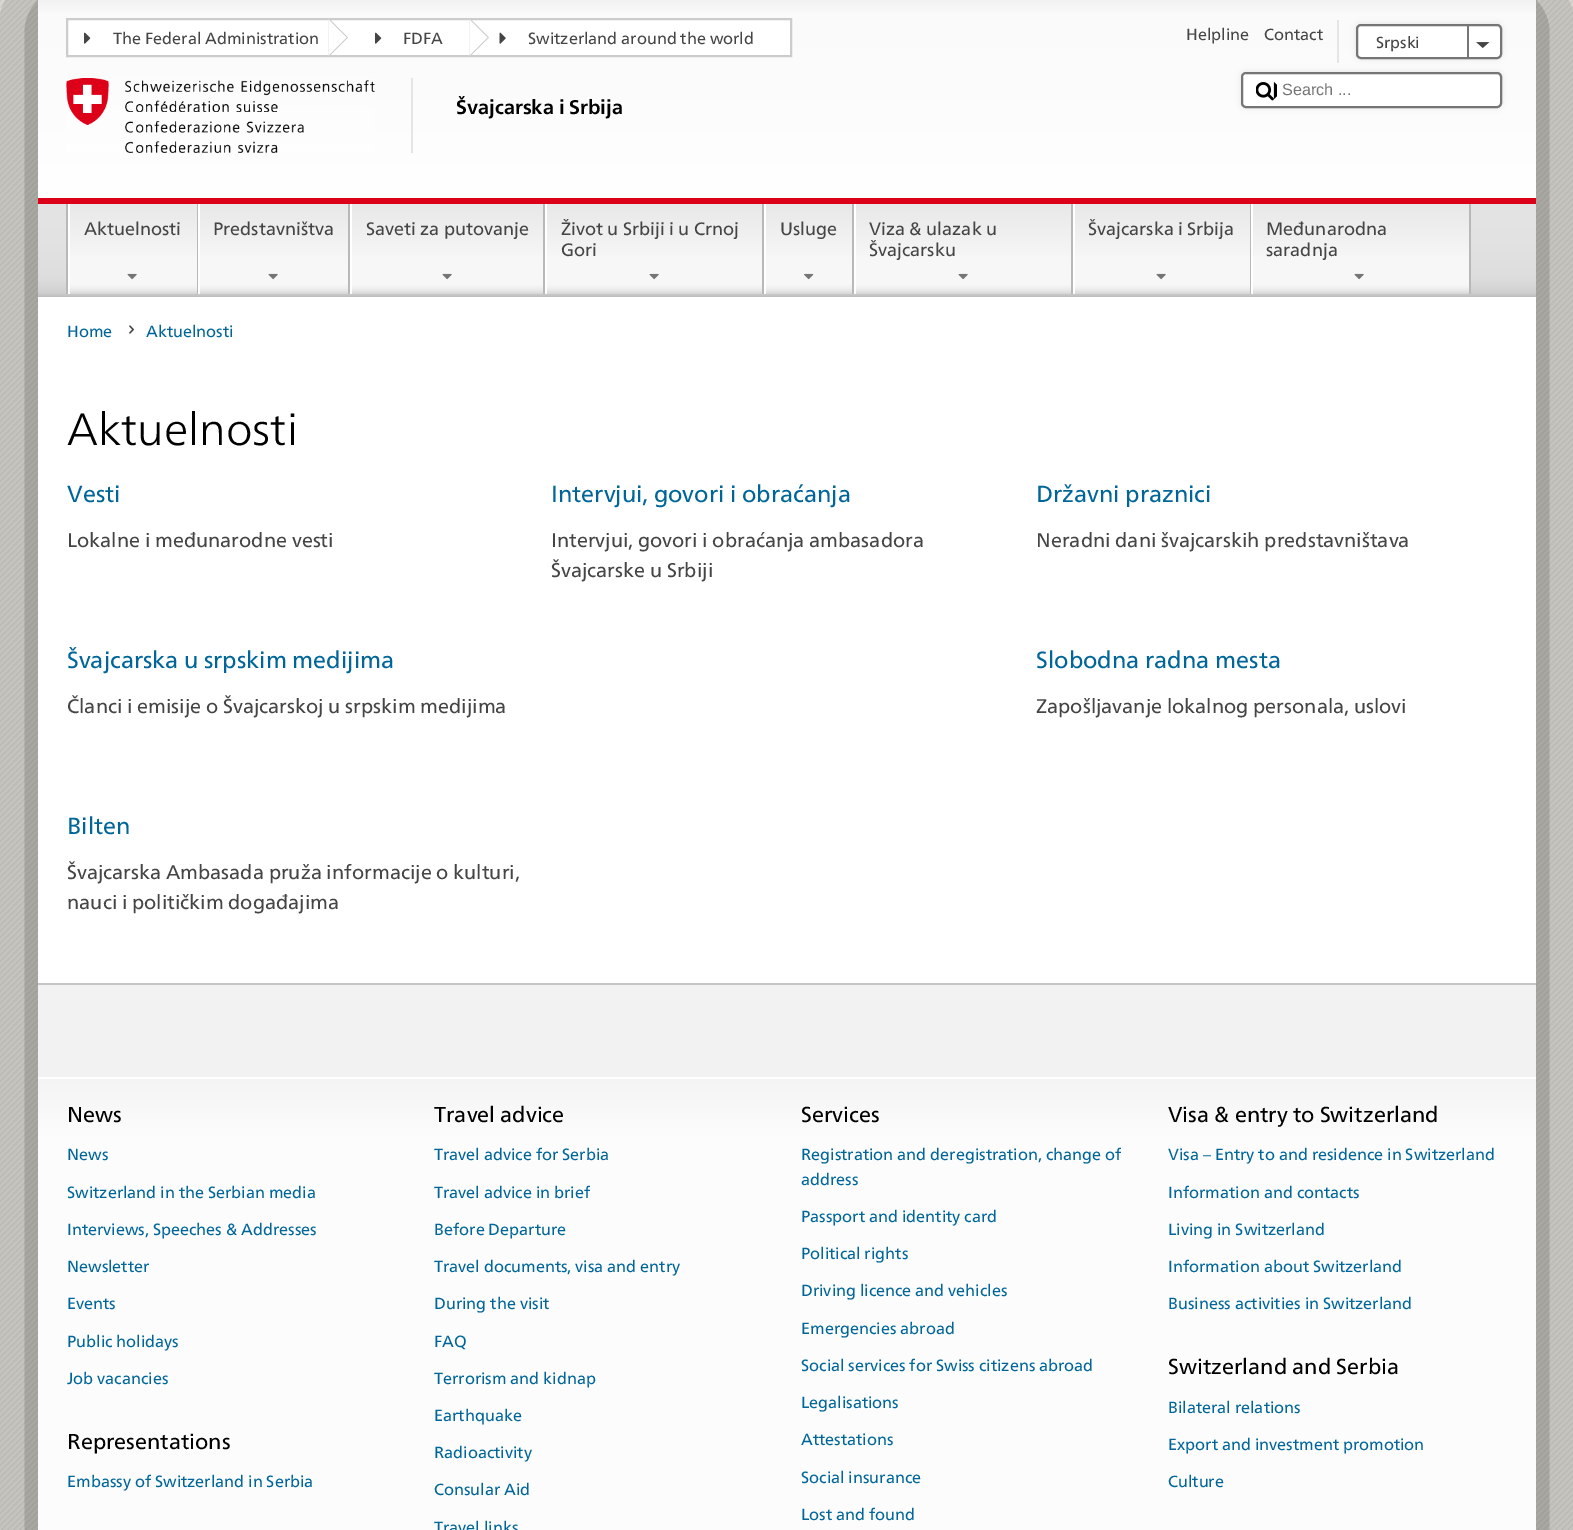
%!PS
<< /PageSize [1573 1530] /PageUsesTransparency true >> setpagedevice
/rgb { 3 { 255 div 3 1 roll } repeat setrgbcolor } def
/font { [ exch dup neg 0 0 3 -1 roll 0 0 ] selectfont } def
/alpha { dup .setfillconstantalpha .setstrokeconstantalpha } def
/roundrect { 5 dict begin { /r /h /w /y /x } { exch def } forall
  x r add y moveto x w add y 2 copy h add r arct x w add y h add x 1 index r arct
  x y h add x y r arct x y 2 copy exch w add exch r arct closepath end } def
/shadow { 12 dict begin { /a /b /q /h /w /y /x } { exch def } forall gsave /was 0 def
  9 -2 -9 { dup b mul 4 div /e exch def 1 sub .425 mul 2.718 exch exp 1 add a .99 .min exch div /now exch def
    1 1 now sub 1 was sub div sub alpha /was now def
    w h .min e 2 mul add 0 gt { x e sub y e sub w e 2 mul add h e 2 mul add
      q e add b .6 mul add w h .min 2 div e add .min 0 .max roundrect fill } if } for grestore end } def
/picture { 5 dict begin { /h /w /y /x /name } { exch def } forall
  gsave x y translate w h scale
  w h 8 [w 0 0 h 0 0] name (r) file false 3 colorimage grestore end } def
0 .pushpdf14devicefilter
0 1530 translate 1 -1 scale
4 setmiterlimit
255 255 255 rgb
0 0 1573 1530 rectfill
(img/1.rgb) 0 0 1573 1530 picture
0 0 0 rgb
38 0 1498 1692 0 54 0.6 shadow
255 255 255 rgb
38 297 1498 686 rectfill
gsave 38 0 moveto 1536 0 lineto 1536 198 lineto 38 198 lineto closepath clip newpath
<< /ShadingType 2 /ColorSpace /DeviceRGB /Coords [787 0 787 198] /Extend [true true] /Function << /FunctionType 3 /Domain [0 1] /Functions [<< /FunctionType 2 /Domain [0 1] /C0 [0.949 0.949 0.949] /C1 [0.98 0.98 0.98] /N 1 >> << /FunctionType 2 /Domain [0 1] /C0 [0.98 0.98 0.98] /C1 [1 1 1] /N 1 >>] /Bounds [0.07] /Encode [0 1 0 1] >> >> shfill grestore
67 19 moveto 791 19 lineto 791 56 lineto 67 56 lineto closepath gsave fill grestore
204 204 204 rgb
2 setlinewidth
stroke
328.5 57 moveto 328.5 18 lineto 348 37.5 lineto closepath fill
(img/2.rgb) 84 32 7 12 picture
255 255 255 rgb
328.5 55.5 moveto 328.5 19.5 lineto 346.5 37.5 lineto closepath fill
204 204 204 rgb
469.5 57 moveto 469.5 18 lineto 489 37.5 lineto closepath fill
(img/2.rgb) 375 32 7 12 picture
255 255 255 rgb
469.5 55.5 moveto 469.5 19.5 lineto 487.5 37.5 lineto closepath fill
(img/3.rgb) 499 32 7 12 picture
0 0 0 rgb
1241 72 261 36 5 3 0.1 shadow
229 229 229 rgb
1337 20 2 43 rectfill
0 0 0 rgb
1356 24 146 35 5 3 0.1 shadow
255 255 255 rgb
1357 25 144 33 4 roundrect gsave fill grestore
117 117 117 rgb
stroke
(img/4.rgb) 1476 42 14 6 picture
1467 24 2 35 rectfill
255 255 255 rgb
1242 73 259 34 4 roundrect gsave fill grestore
117 117 117 rgb
stroke
(img/5.rgb) 1256 82 21 19 picture
(img/6.rgb) 66 78 309 75 picture
229 229 229 rgb
411 78 2 75 rectfill
gsave 38 204 moveto 1536 204 lineto 1536 297 lineto 38 297 lineto closepath clip newpath
<< /ShadingType 2 /ColorSpace /DeviceRGB /Coords [787 204 787 297] /Extend [true true] /Function << /FunctionType 3 /Domain [0 1] /Functions [<< /FunctionType 2 /Domain [0 1] /C0 [0.894 0.894 0.894] /C1 [0.886 0.886 0.886] /N 1 >> << /FunctionType 2 /Domain [0 1] /C0 [0.886 0.886 0.886] /C1 [0.867 0.867 0.867] /N 1 >> << /FunctionType 2 /Domain [0 1] /C0 [0.867 0.867 0.867] /C1 [0.835 0.835 0.835] /N 1 >> << /FunctionType 2 /Domain [0 1] /C0 [0.835 0.835 0.835] /C1 [0.812 0.812 0.812] /N 1 >> << /FunctionType 2 /Domain [0 1] /C0 [0.812 0.812 0.812] /C1 [0.745 0.745 0.745] /N 1 >>] /Bounds [0.39 0.79 0.91 0.95] /Encode [0 1 0 1 0 1 0 1 0 1] >> >> shfill grestore
220 0 24 rgb
38 198 1498 6 rectfill
184 184 184 rgb
66 204 2 90 rectfill
gsave 70 204 moveto 197 204 lineto 197 294 lineto 70 294 lineto closepath clip newpath
<< /ShadingType 2 /ColorSpace /DeviceRGB /Coords [133 204 133 294] /Extend [true true] /Function << /FunctionType 3 /Domain [0 1] /Functions [<< /FunctionType 2 /Domain [0 1] /C0 [0.91 0.91 0.91] /C1 [0.969 0.969 0.969] /N 1 >> << /FunctionType 2 /Domain [0 1] /C0 [0.969 0.969 0.969] /C1 [0.969 0.969 0.969] /N 1 >> << /FunctionType 2 /Domain [0 1] /C0 [0.969 0.969 0.969] /C1 [0.961 0.961 0.961] /N 1 >> << /FunctionType 2 /Domain [0 1] /C0 [0.961 0.961 0.961] /C1 [0.925 0.925 0.925] /N 1 >> << /FunctionType 2 /Domain [0 1] /C0 [0.925 0.925 0.925] /C1 [0.843 0.843 0.843] /N 1 >>] /Bounds [0.61 0.89 0.91 0.95] /Encode [0 1 0 1 0 1 0 1 0 1] >> >> shfill grestore
197 204 1 90 rectfill
255 255 255 rgb
68 204 2 90 rectfill
(img/7.rgb) 127 273 10 7 picture
gsave 200 204 moveto 348 204 lineto 348 294 lineto 200 294 lineto closepath clip newpath
<< /ShadingType 2 /ColorSpace /DeviceRGB /Coords [274 204 274 294] /Extend [true true] /Function << /FunctionType 3 /Domain [0 1] /Functions [<< /FunctionType 2 /Domain [0 1] /C0 [0.91 0.91 0.91] /C1 [0.969 0.969 0.969] /N 1 >> << /FunctionType 2 /Domain [0 1] /C0 [0.969 0.969 0.969] /C1 [0.969 0.969 0.969] /N 1 >> << /FunctionType 2 /Domain [0 1] /C0 [0.969 0.969 0.969] /C1 [0.961 0.961 0.961] /N 1 >> << /FunctionType 2 /Domain [0 1] /C0 [0.961 0.961 0.961] /C1 [0.925 0.925 0.925] /N 1 >> << /FunctionType 2 /Domain [0 1] /C0 [0.925 0.925 0.925] /C1 [0.843 0.843 0.843] /N 1 >>] /Bounds [0.61 0.89 0.91 0.95] /Encode [0 1 0 1 0 1 0 1 0 1] >> >> shfill grestore
184 184 184 rgb
348 204 2 90 rectfill
255 255 255 rgb
198 204 2 90 rectfill
(img/7.rgb) 268 273 10 7 picture
gsave 352 204 moveto 543 204 lineto 543 294 lineto 352 294 lineto closepath clip newpath
<< /ShadingType 2 /ColorSpace /DeviceRGB /Coords [447 204 447 294] /Extend [true true] /Function << /FunctionType 3 /Domain [0 1] /Functions [<< /FunctionType 2 /Domain [0 1] /C0 [0.91 0.91 0.91] /C1 [0.969 0.969 0.969] /N 1 >> << /FunctionType 2 /Domain [0 1] /C0 [0.969 0.969 0.969] /C1 [0.969 0.969 0.969] /N 1 >> << /FunctionType 2 /Domain [0 1] /C0 [0.969 0.969 0.969] /C1 [0.961 0.961 0.961] /N 1 >> << /FunctionType 2 /Domain [0 1] /C0 [0.961 0.961 0.961] /C1 [0.925 0.925 0.925] /N 1 >> << /FunctionType 2 /Domain [0 1] /C0 [0.925 0.925 0.925] /C1 [0.843 0.843 0.843] /N 1 >>] /Bounds [0.61 0.89 0.91 0.95] /Encode [0 1 0 1 0 1 0 1 0 1] >> >> shfill grestore
184 184 184 rgb
543 204 2 90 rectfill
255 255 255 rgb
350 204 2 90 rectfill
(img/7.rgb) 442 273 10 7 picture
gsave 547 204 moveto 762 204 lineto 762 294 lineto 547 294 lineto closepath clip newpath
<< /ShadingType 2 /ColorSpace /DeviceRGB /Coords [654 204 654 294] /Extend [true true] /Function << /FunctionType 3 /Domain [0 1] /Functions [<< /FunctionType 2 /Domain [0 1] /C0 [0.91 0.91 0.91] /C1 [0.969 0.969 0.969] /N 1 >> << /FunctionType 2 /Domain [0 1] /C0 [0.969 0.969 0.969] /C1 [0.969 0.969 0.969] /N 1 >> << /FunctionType 2 /Domain [0 1] /C0 [0.969 0.969 0.969] /C1 [0.961 0.961 0.961] /N 1 >> << /FunctionType 2 /Domain [0 1] /C0 [0.961 0.961 0.961] /C1 [0.925 0.925 0.925] /N 1 >> << /FunctionType 2 /Domain [0 1] /C0 [0.925 0.925 0.925] /C1 [0.843 0.843 0.843] /N 1 >>] /Bounds [0.61 0.89 0.91 0.95] /Encode [0 1 0 1 0 1 0 1 0 1] >> >> shfill grestore
184 184 184 rgb
762 204 2 90 rectfill
255 255 255 rgb
545 204 2 90 rectfill
(img/7.rgb) 649 273 10 7 picture
gsave 766 204 moveto 852 204 lineto 852 294 lineto 766 294 lineto closepath clip newpath
<< /ShadingType 2 /ColorSpace /DeviceRGB /Coords [809 204 809 294] /Extend [true true] /Function << /FunctionType 3 /Domain [0 1] /Functions [<< /FunctionType 2 /Domain [0 1] /C0 [0.91 0.91 0.91] /C1 [0.969 0.969 0.969] /N 1 >> << /FunctionType 2 /Domain [0 1] /C0 [0.969 0.969 0.969] /C1 [0.969 0.969 0.969] /N 1 >> << /FunctionType 2 /Domain [0 1] /C0 [0.969 0.969 0.969] /C1 [0.961 0.961 0.961] /N 1 >> << /FunctionType 2 /Domain [0 1] /C0 [0.961 0.961 0.961] /C1 [0.925 0.925 0.925] /N 1 >> << /FunctionType 2 /Domain [0 1] /C0 [0.925 0.925 0.925] /C1 [0.843 0.843 0.843] /N 1 >>] /Bounds [0.61 0.89 0.91 0.95] /Encode [0 1 0 1 0 1 0 1 0 1] >> >> shfill grestore
184 184 184 rgb
852 204 2 90 rectfill
255 255 255 rgb
764 204 2 90 rectfill
(img/8.rgb) 804 273 10 7 picture
gsave 856 204 moveto 1071 204 lineto 1071 294 lineto 856 294 lineto closepath clip newpath
<< /ShadingType 2 /ColorSpace /DeviceRGB /Coords [963 204 963 294] /Extend [true true] /Function << /FunctionType 3 /Domain [0 1] /Functions [<< /FunctionType 2 /Domain [0 1] /C0 [0.91 0.91 0.91] /C1 [0.969 0.969 0.969] /N 1 >> << /FunctionType 2 /Domain [0 1] /C0 [0.969 0.969 0.969] /C1 [0.969 0.969 0.969] /N 1 >> << /FunctionType 2 /Domain [0 1] /C0 [0.969 0.969 0.969] /C1 [0.961 0.961 0.961] /N 1 >> << /FunctionType 2 /Domain [0 1] /C0 [0.961 0.961 0.961] /C1 [0.925 0.925 0.925] /N 1 >> << /FunctionType 2 /Domain [0 1] /C0 [0.925 0.925 0.925] /C1 [0.843 0.843 0.843] /N 1 >>] /Bounds [0.61 0.89 0.91 0.95] /Encode [0 1 0 1 0 1 0 1 0 1] >> >> shfill grestore
184 184 184 rgb
1071 204 2 90 rectfill
255 255 255 rgb
854 204 2 90 rectfill
(img/7.rgb) 958 273 10 7 picture
gsave 1075 204 moveto 1250 204 lineto 1250 294 lineto 1075 294 lineto closepath clip newpath
<< /ShadingType 2 /ColorSpace /DeviceRGB /Coords [1162 204 1162 294] /Extend [true true] /Function << /FunctionType 3 /Domain [0 1] /Functions [<< /FunctionType 2 /Domain [0 1] /C0 [0.91 0.91 0.91] /C1 [0.969 0.969 0.969] /N 1 >> << /FunctionType 2 /Domain [0 1] /C0 [0.969 0.969 0.969] /C1 [0.969 0.969 0.969] /N 1 >> << /FunctionType 2 /Domain [0 1] /C0 [0.969 0.969 0.969] /C1 [0.961 0.961 0.961] /N 1 >> << /FunctionType 2 /Domain [0 1] /C0 [0.961 0.961 0.961] /C1 [0.925 0.925 0.925] /N 1 >> << /FunctionType 2 /Domain [0 1] /C0 [0.925 0.925 0.925] /C1 [0.843 0.843 0.843] /N 1 >>] /Bounds [0.61 0.89 0.91 0.95] /Encode [0 1 0 1 0 1 0 1 0 1] >> >> shfill grestore
184 184 184 rgb
1250 204 1 90 rectfill
255 255 255 rgb
1073 204 2 90 rectfill
(img/7.rgb) 1156 273 10 7 picture
gsave 1253 204 moveto 1469 204 lineto 1469 294 lineto 1253 294 lineto closepath clip newpath
<< /ShadingType 2 /ColorSpace /DeviceRGB /Coords [1361 204 1361 294] /Extend [true true] /Function << /FunctionType 3 /Domain [0 1] /Functions [<< /FunctionType 2 /Domain [0 1] /C0 [0.91 0.91 0.91] /C1 [0.969 0.969 0.969] /N 1 >> << /FunctionType 2 /Domain [0 1] /C0 [0.969 0.969 0.969] /C1 [0.969 0.969 0.969] /N 1 >> << /FunctionType 2 /Domain [0 1] /C0 [0.969 0.969 0.969] /C1 [0.961 0.961 0.961] /N 1 >> << /FunctionType 2 /Domain [0 1] /C0 [0.961 0.961 0.961] /C1 [0.925 0.925 0.925] /N 1 >> << /FunctionType 2 /Domain [0 1] /C0 [0.925 0.925 0.925] /C1 [0.843 0.843 0.843] /N 1 >>] /Bounds [0.61 0.89 0.91 0.95] /Encode [0 1 0 1 0 1 0 1 0 1] >> >> shfill grestore
184 184 184 rgb
1469 204 2 90 rectfill
255 255 255 rgb
1251 204 2 90 rectfill
(img/7.rgb) 1354 273 10 7 picture
(img/9.rgb) 129 325 5 9 picture
242 242 242 rgb
38 985 1498 92 rectfill
197 197 197 rgb
38 983 1498 2 rectfill
gsave 38 1079 moveto 1536 1079 lineto 1536 1530 lineto 38 1530 lineto closepath clip newpath
<< /ShadingType 2 /ColorSpace /DeviceRGB /Coords [787 1079 787 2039] /Extend [true true] /Function << /FunctionType 3 /Domain [0 1] /Functions [<< /FunctionType 2 /Domain [0 1] /C0 [0.957 0.957 0.957] /C1 [0.988 0.988 0.988] /N 1 >> << /FunctionType 2 /Domain [0 1] /C0 [0.988 0.988 0.988] /C1 [0.988 0.988 0.988] /N 1 >>] /Bounds [0.06] /Encode [0 1 0 1] >> >> shfill grestore
255 255 255 rgb
38 1077 1498 2 rectfill
/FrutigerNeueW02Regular-Regular 16.2 font
69 69 69 rgb
[
  [(The Federal Administration) 113 44]
  [(FDFA) 403 44]
  [(Switzerland around the world) 528 44]
  [(Helpline) 1186 40]
  [(Contact) 1264 40]
] { aload pop moveto show } forall
/FrutigerNeueW02Regular-Regular 16 font
1376 48 moveto (Srpski) show
/LiberationSans-Regular 16.2 font
117 117 117 rgb
1282 95 moveto (Search ...) show
/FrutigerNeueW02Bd-Bold 19.8 font
0 0 0 rgb
456 114 moveto (Švajcarska i Srbija) show
/FrutigerNeueW02Regular-Regular 18 font
69 69 69 rgb
[
  [(Aktuelnosti) 84 235]
  [(Predstavništva) 213 235]
  [(Saveti za putovanje) 366 235]
  [(Život u Srbiji i u Crnoj) 561 235]
  [(Gori) 561 256]
  [(Usluge) 780 235]
  [(Viza & ulazak u) 869 235]
  [(Švajcarsku) 869 256]
  [(Švajcarska i Srbija) 1088 235]
  [(Međunarodna) 1266 235]
  [(saradnja) 1266 256]
] { aload pop moveto show } forall
/FrutigerNeueW02Regular-Regular 16.2 font
0 102 153 rgb
67 337 moveto (Home) show
146 337 moveto (Aktuelnosti) show
/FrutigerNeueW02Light-Light 45 font
0 0 0 rgb
67 445 moveto (Aktuelnosti) show
/FrutigerNeueW02Regular-Regular 23.4 font
0 102 153 rgb
67 502 moveto (Vesti) show
/FrutigerNeueW02Regular-Regular 19.8 font
69 69 69 rgb
67 547 moveto (Lokalne i međunarodne vesti) show
/FrutigerNeueW02Regular-Regular 23.4 font
0 102 153 rgb
67 668 moveto (Švajcarska u srpskim medijima) show
/FrutigerNeueW02Regular-Regular 19.8 font
69 69 69 rgb
67 713 moveto (Članci i emisije o Švajcarskoj u srpskim medijima) show
/FrutigerNeueW02Regular-Regular 23.4 font
0 102 153 rgb
67 834 moveto (Bilten) show
/FrutigerNeueW02Regular-Regular 19.8 font
69 69 69 rgb
67 879 moveto (Švajcarska Ambasada pruža informacije o kulturi,) show
67 909 moveto (nauci i političkim događajima) show
/FrutigerNeueW02Regular-Regular 23.4 font
0 102 153 rgb
551 502 moveto (Intervjui, govori i obraćanja) show
/FrutigerNeueW02Regular-Regular 19.8 font
69 69 69 rgb
551 547 moveto (Intervjui, govori i obraćanja ambasadora) show
551 577 moveto (Švajcarske u Srbiji) show
/FrutigerNeueW02Regular-Regular 23.4 font
0 102 153 rgb
1036 502 moveto (Državni praznici) show
/FrutigerNeueW02Regular-Regular 19.8 font
69 69 69 rgb
1036 547 moveto (Neradni dani švajcarskih predstavništava) show
/FrutigerNeueW02Regular-Regular 23.4 font
0 102 153 rgb
1036 668 moveto (Slobodna radna mesta) show
/FrutigerNeueW02Regular-Regular 19.8 font
69 69 69 rgb
1036 713 moveto (Zapošljavanje lokalnog personala, uslovi) show
/FrutigerNeueW02Regular-Regular 21.6 font
0 0 0 rgb
67 1122 moveto (News) show
/FrutigerNeueW02Regular-Regular 16.2 font
0 102 153 rgb
[
  [(News) 67 1160]
  [(Switzerland in the Serbian media) 67 1198]
  [(Interviews, Speeches & Addresses) 67 1235]
  [(Newsletter) 67 1272]
  [(Events) 67 1309]
  [(Public holidays) 67 1347]
  [(Job vacancies) 67 1384]
] { aload pop moveto show } forall
/FrutigerNeueW02Regular-Regular 21.6 font
0 0 0 rgb
67 1449 moveto (Representations) show
/FrutigerNeueW02Regular-Regular 16.2 font
0 102 153 rgb
67 1487 moveto (Embassy of Switzerland in Serbia) show
/FrutigerNeueW02Regular-Regular 21.6 font
0 0 0 rgb
434 1122 moveto (Travel advice) show
/FrutigerNeueW02Regular-Regular 16.2 font
0 102 153 rgb
[
  [(Travel advice for Serbia) 434 1160]
  [(Travel advice in brief) 434 1198]
  [(Before Departure) 434 1235]
  [(Travel documents, visa and entry) 434 1272]
  [(During the visit) 434 1309]
  [(FAQ) 434 1347]
  [(Terrorism and kidnap) 434 1384]
  [(Earthquake) 434 1421]
  [(Radioactivity) 434 1458]
  [(Consular Aid) 434 1495]
  [(Travel links) 434 1533]
] { aload pop moveto show } forall
/FrutigerNeueW02Regular-Regular 21.6 font
0 0 0 rgb
801 1122 moveto (Services) show
/FrutigerNeueW02Regular-Regular 16.2 font
0 102 153 rgb
[
  [(Registration and deregistration, change of) 801 1160]
  [(address) 801 1185]
  [(Passport and identity card) 801 1222]
  [(Political rights) 801 1259]
  [(Driving licence and vehicles) 801 1296]
  [(Emergencies abroad) 801 1334]
  [(Social services for Swiss citizens abroad) 801 1371]
  [(Legalisations) 801 1408]
  [(Attestations) 801 1445]
  [(Social insurance) 801 1483]
  [(Lost and found) 801 1520]
] { aload pop moveto show } forall
/FrutigerNeueW02Regular-Regular 21.6 font
0 0 0 rgb
1168 1122 moveto (Visa & entry to Switzerland) show
/FrutigerNeueW02Regular-Regular 16.2 font
0 102 153 rgb
[
  [(Visa – Entry to and residence in Switzerland) 1168 1160]
  [(Information and contacts) 1168 1198]
  [(Living in Switzerland) 1168 1235]
  [(Information about Switzerland) 1168 1272]
  [(Business activities in Switzerland) 1168 1309]
] { aload pop moveto show } forall
/FrutigerNeueW02Regular-Regular 21.6 font
0 0 0 rgb
1168 1374 moveto (Switzerland and Serbia) show
/FrutigerNeueW02Regular-Regular 16.2 font
0 102 153 rgb
[
  [(Bilateral relations) 1168 1413]
  [(Export and investment promotion) 1168 1450]
  [(Culture) 1168 1487]
] { aload pop moveto show } forall
.poppdf14devicefilter showpage
